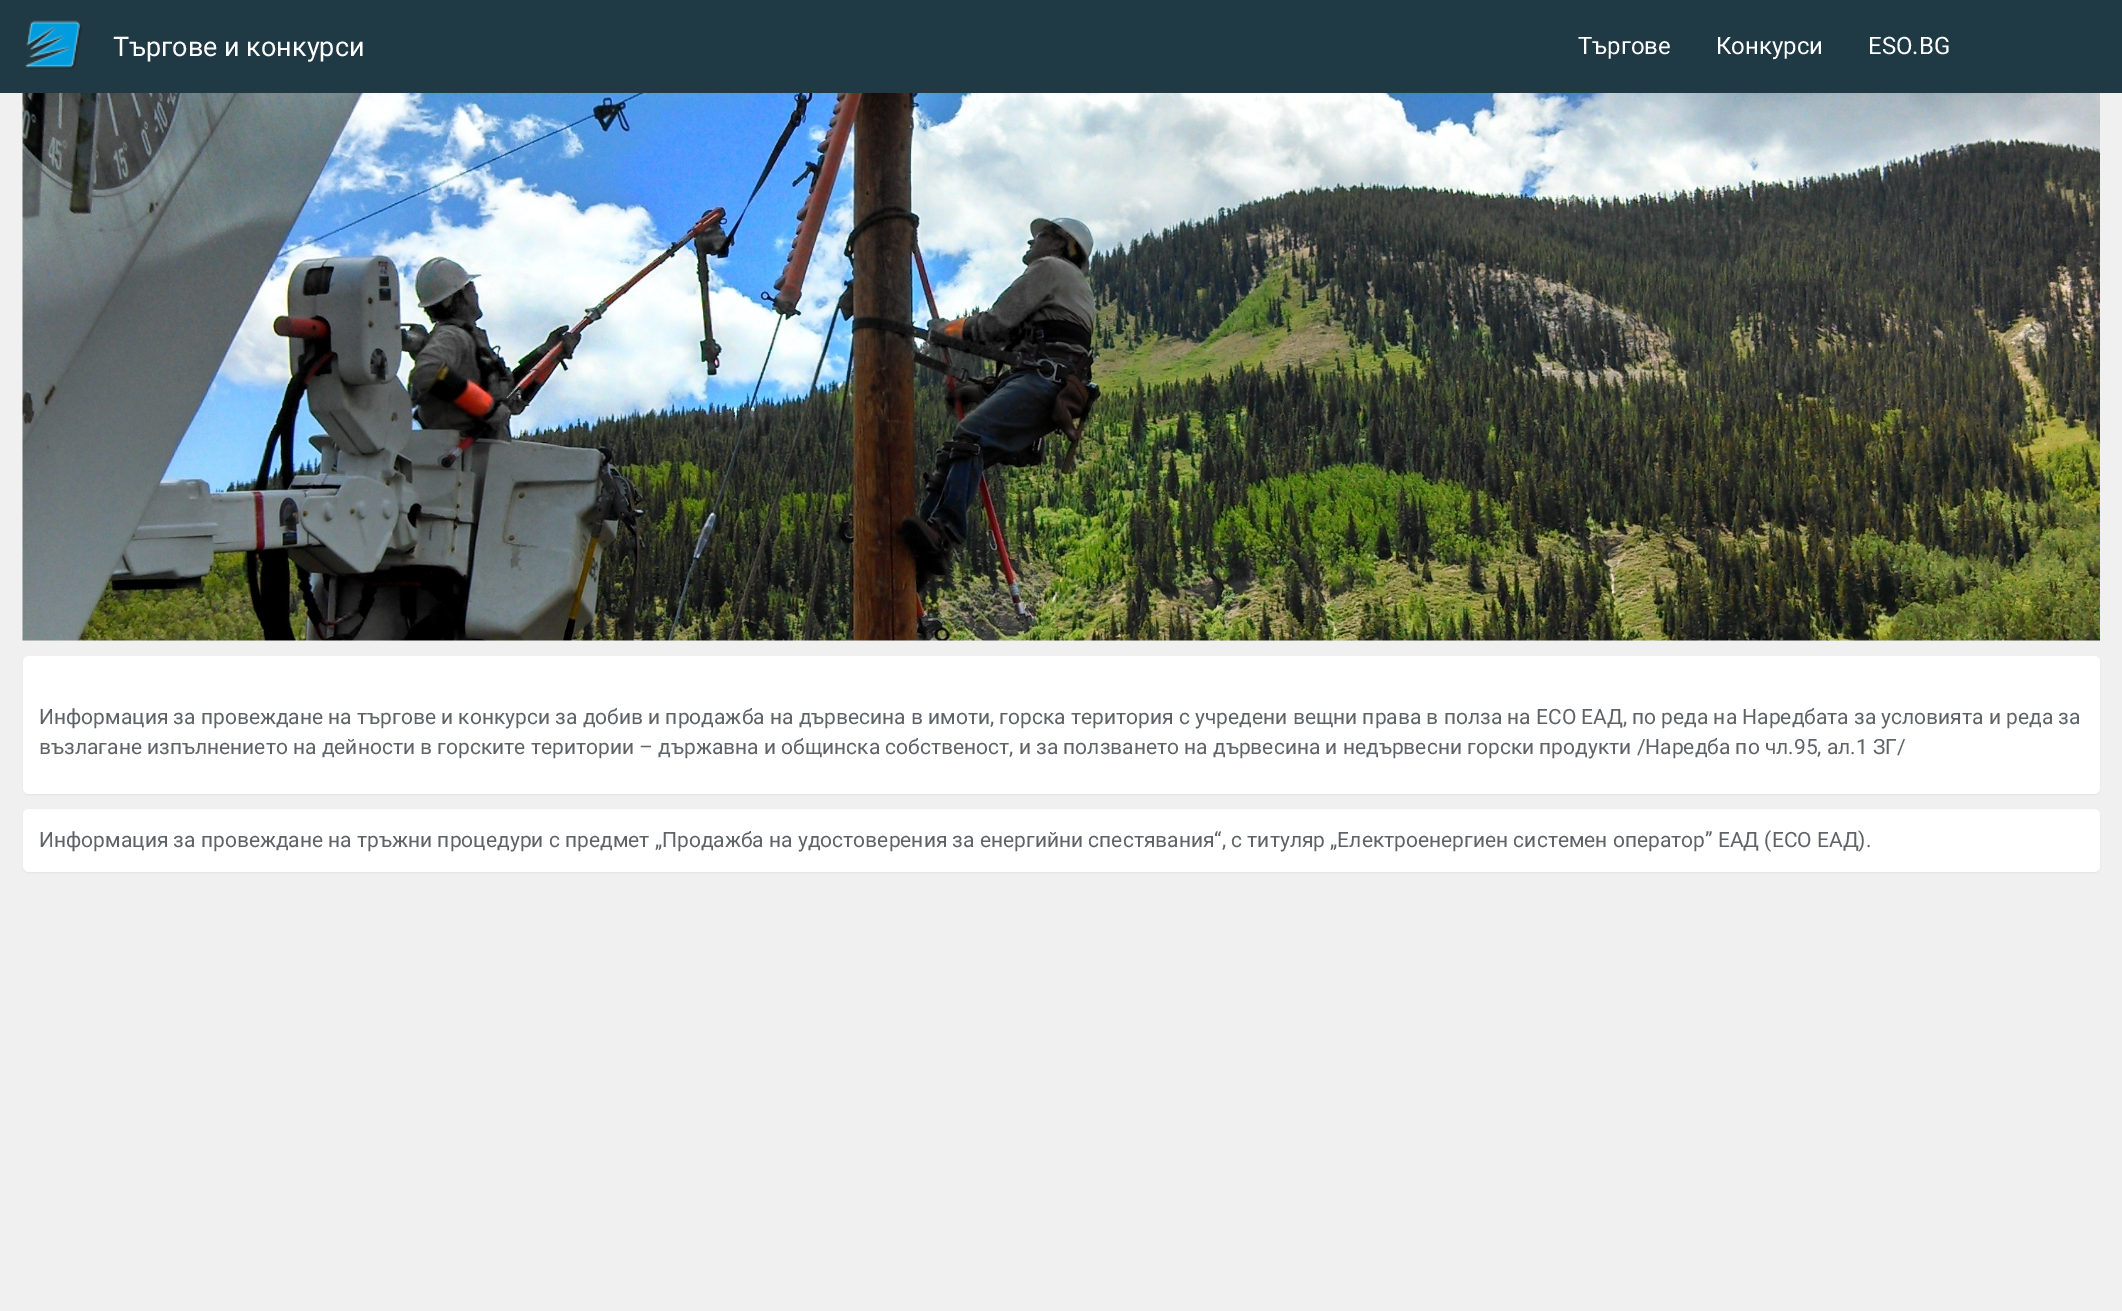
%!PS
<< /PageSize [2122 1311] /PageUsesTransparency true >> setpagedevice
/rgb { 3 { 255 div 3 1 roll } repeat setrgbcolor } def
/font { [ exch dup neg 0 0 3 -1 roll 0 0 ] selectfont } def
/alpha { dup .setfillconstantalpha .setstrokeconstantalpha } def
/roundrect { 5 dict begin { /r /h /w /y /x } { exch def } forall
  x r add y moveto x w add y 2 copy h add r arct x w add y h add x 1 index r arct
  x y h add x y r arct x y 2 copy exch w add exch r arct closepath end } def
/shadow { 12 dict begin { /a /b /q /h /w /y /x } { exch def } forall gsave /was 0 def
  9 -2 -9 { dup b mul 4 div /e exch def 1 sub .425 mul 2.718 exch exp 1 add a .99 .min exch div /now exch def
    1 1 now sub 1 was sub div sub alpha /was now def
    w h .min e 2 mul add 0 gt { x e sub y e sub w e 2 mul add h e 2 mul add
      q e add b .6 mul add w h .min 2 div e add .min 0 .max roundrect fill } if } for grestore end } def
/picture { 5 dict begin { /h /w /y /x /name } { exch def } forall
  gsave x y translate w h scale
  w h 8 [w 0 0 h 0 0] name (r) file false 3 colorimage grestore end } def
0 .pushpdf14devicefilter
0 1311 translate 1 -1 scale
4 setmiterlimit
240 240 240 rgb
0 0 2122 1311 rectfill
32 58 69 rgb
0 0 2122 93 rectfill
(img/1.rgb) 25 20 57 49 picture
(img/2.rgb) 22 93 2078 548 picture
0 0 0 rgb
23 657 2077 138 6 1 0.05 shadow
255 255 255 rgb
23 656 2077 138 6 roundrect fill
0 0 0 rgb
23 810 2077 63 6 1 0.05 shadow
255 255 255 rgb
23 809 2077 63 6 roundrect fill
/Roboto-Regular 27 font
113 56 moveto (Търгове и конкурси) show
/Roboto-Regular 24 font
[
  [(Търгове) 1578 54]
  [(Конкурси) 1716 54]
  [(ESO.BG) 1868 54]
] { aload pop moveto show } forall
/Roboto-Regular 21 font
95 99 104 rgb
[
  [(Информация за провеждане на търгове и конкурси за добив и продажба на дървесина в имоти, горска територия с учредени вещни права в полза на ЕСО ЕАД, по реда на Наредбата за условията и реда за) 39 724]
  [(възлагане изпълнението на дейности в горските територии – държавна и общинска собственост, и за ползването на дървесина и недървесни горски продукти /Наредба по чл.95, ал.1 ЗГ/) 39 754]
  [(Информация за провеждане на тръжни процедури с предмет „Продажба на удостоверения за енергийни спестявания“, с титуляр „Електроенергиен системен оператор” ЕАД \(ЕСО ЕАД\).) 39 847]
] { aload pop moveto show } forall
.poppdf14devicefilter showpage
